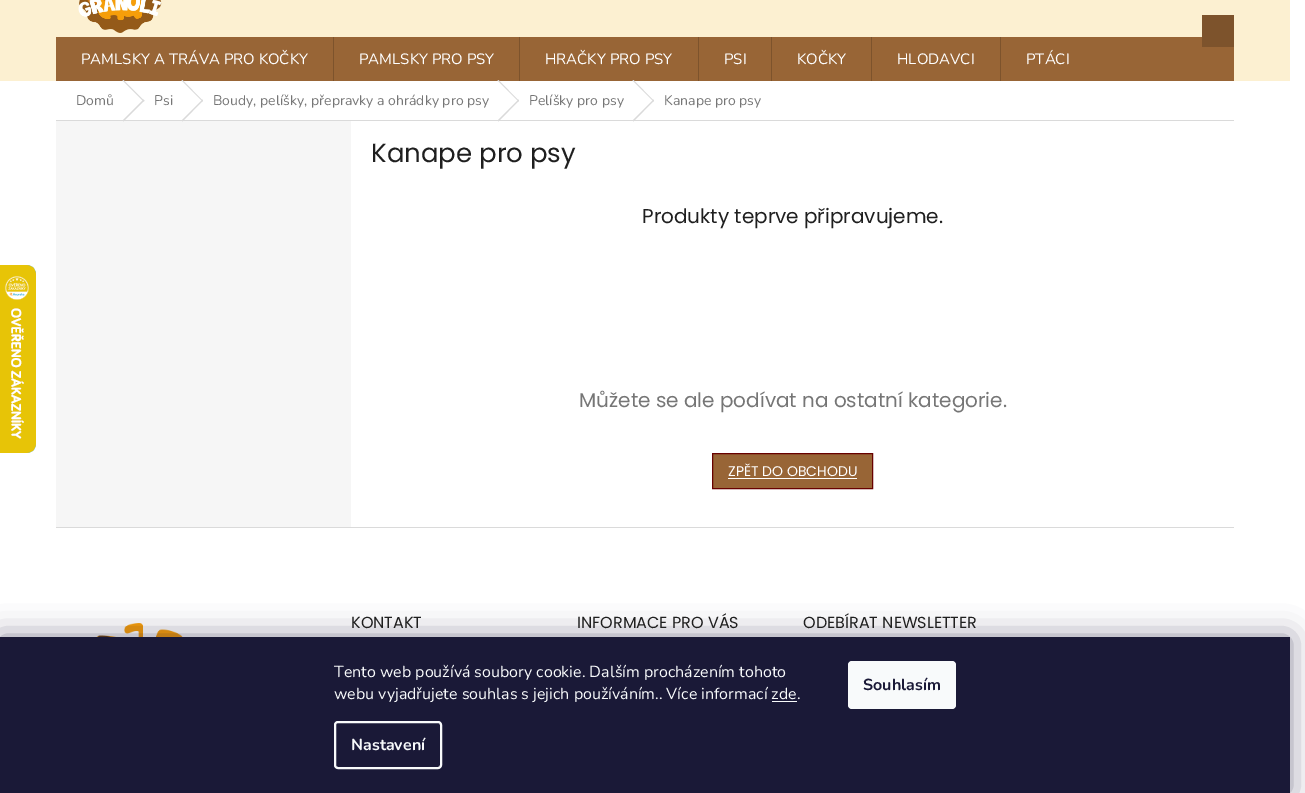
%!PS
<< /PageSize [1305 793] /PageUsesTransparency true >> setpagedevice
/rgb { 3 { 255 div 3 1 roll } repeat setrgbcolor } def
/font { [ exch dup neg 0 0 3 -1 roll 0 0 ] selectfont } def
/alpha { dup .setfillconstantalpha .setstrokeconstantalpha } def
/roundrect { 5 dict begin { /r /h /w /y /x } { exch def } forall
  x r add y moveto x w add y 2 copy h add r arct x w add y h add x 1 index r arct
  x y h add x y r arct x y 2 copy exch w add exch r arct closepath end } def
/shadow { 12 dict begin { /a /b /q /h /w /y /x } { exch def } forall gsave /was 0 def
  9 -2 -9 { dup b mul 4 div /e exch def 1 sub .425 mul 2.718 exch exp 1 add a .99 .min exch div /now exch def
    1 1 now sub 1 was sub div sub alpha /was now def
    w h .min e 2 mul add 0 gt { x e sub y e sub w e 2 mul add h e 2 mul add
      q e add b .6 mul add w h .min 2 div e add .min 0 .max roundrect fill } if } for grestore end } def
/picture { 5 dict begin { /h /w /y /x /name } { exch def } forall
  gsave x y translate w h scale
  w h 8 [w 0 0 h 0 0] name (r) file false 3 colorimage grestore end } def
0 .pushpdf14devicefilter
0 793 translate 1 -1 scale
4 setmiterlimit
255 255 255 rgb
0 0 1305 793 rectfill
(img/1.rgb) 0 265 36 188 picture
252 240 209 rgb
0 0 1290 81 rectfill
(img/2.rgb) 78 0 84 33 picture
[
  [56 37 1178 44 152 101 54]
  [1202 15 32 32 125 83 44]
  [333 37 1 44 125 83 44]
  [519 37 1 44 125 83 44]
  [698 37 1 44 125 83 44]
  [771 37 1 44 125 83 44]
  [871 37 1 44 125 83 44]
  [1000 37 1 44 125 83 44]
  [56 120 1178 1 218 218 218]
] { aload pop rgb rectfill } forall
122.5 80.5 moveto 123.5 80 lineto 144.5 101 lineto 143.5 101.5 lineto closepath fill
246 246 246 rgb
56 121 295 406 rectfill
218 218 218 rgb
143.5 99.5 moveto 144.5 100.5 lineto 123.5 121.5 lineto 122.5 120.5 lineto closepath fill
181.5 80.5 moveto 182.5 80 lineto 203 101 lineto 202.5 101.5 lineto closepath fill
202.5 99.5 moveto 203 100.5 lineto 182.5 121.5 lineto 181.5 120.5 lineto closepath fill
497.5 80.5 moveto 498.5 80 lineto 519 101 lineto 518.5 101.5 lineto closepath fill
518.5 99.5 moveto 519 100.5 lineto 498.5 121.5 lineto 497.5 120.5 lineto closepath fill
632.5 80.5 moveto 633.5 80 lineto 654 101 lineto 653.5 101.5 lineto closepath fill
653.5 99.5 moveto 654 100.5 lineto 633.5 121.5 lineto 632.5 120.5 lineto closepath fill
152 101 54 rgb
712.5 453.5 moveto 872.5 453.5 lineto 872.5 488.5 lineto 712.5 488.5 lineto closepath gsave fill grestore
104 1 0 rgb
stroke
255 255 255 rgb
728 478 129 1 rectfill
(img/3.rgb) 96 623 87 14 picture
218 218 218 rgb
56 527 1178 1 rectfill
27 25 57 rgb
0 637 1290 156 0 15 0.5 shadow
26 25 55 rgb
0 637 1290 156 rectfill
248 250 251 rgb
772 701 25 1 rectfill
2 setlinewidth
335 722 106 46 3 roundrect stroke
848 661 108 48 4 roundrect fill
/Nunito-Regular 15 font
255 255 255 rgb
[
  [(PAMLSKY A TRÁVA PRO KOČKY) 81 64]
  [(PAMLSKY PRO PSY) 359 64]
  [(HRAČKY PRO PSY) 545 64]
  [(PSI) 724 64]
  [(KOČKY) 797 64]
  [(HLODAVCI) 897 64]
  [(PTÁCI) 1026 64]
] { aload pop moveto show } forall
/Nunito-Regular 14 font
118 118 118 rgb
[
  [(Domů) 76 105]
  [(Psi) 154 105]
  [(Boudy, pelíšky, přepravky a ohrádky pro psy) 213 105]
  [(Pelíšky pro psy) 529 105]
  [(Kanape pro psy) 664 105]
] { aload pop moveto show } forall
/Poppins-Regular 26 font
31 31 31 rgb
371 162 moveto (Kanape pro psy) show
/Poppins-Regular 20 font
642 223 moveto (Produkty teprve připravujeme.) show
118 118 118 rgb
579 407 moveto (Můžete se ale podívat na ostatní kategorie.) show
/Poppins-Regular 14 font
255 255 255 rgb
728 476 moveto (ZPĚT DO OBCHODU) show
/Poppins-Regular 16 font
31 31 31 rgb
[
  [(KONTAKT) 351 628]
  [(INFORMACE PRO VÁS) 577 628]
  [(ODEBÍRAT NEWSLETTER) 803 628]
] { aload pop moveto show } forall
/Nunito-Regular 16 font
248 250 251 rgb
334 677 moveto (Tento web používá soubory cookie. Dalším procházením tohoto) show
334 699 moveto (webu vyjadřujete souhlas s jejich používáním.. Více informací zde.) show
/Nunito-Bold 16 font
351 750 moveto (Nastavení) show
26 25 55 rgb
863 690 moveto (Souhlasím) show
.poppdf14devicefilter showpage
